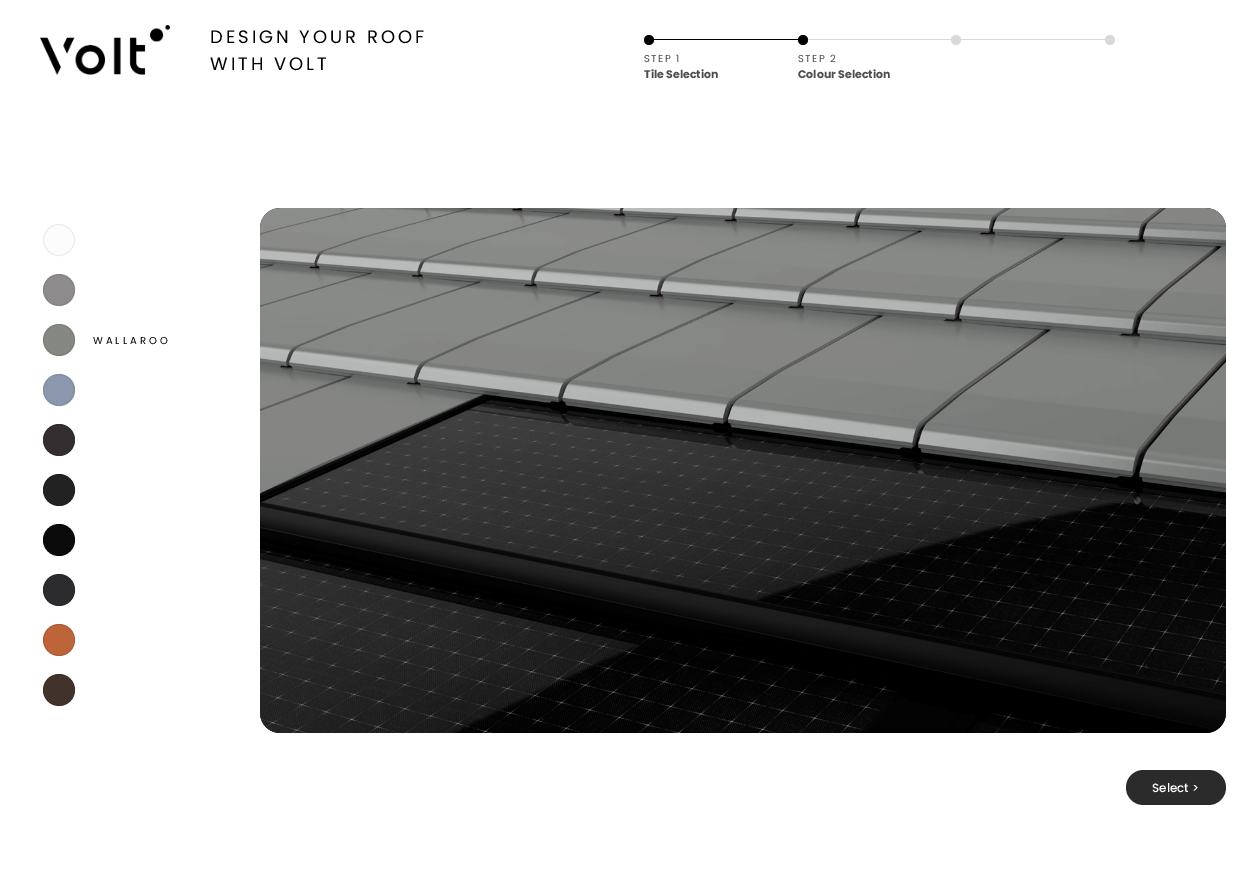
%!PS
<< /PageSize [1246 875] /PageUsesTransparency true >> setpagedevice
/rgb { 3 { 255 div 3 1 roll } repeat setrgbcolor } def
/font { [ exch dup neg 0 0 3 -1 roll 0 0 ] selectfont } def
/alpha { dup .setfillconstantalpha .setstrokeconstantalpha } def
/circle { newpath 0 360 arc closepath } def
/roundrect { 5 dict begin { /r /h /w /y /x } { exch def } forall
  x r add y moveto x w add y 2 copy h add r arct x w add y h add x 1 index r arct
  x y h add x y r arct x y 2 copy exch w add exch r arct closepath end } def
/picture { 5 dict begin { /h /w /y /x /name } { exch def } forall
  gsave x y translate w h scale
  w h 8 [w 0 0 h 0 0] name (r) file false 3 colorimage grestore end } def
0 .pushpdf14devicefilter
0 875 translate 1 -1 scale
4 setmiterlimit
255 255 255 rgb
0 0 1246 875 rectfill
(img/1.rgb) 40 25 130 50 picture
0 0 0 rgb
649 40 5 circle fill
654 39 144 1 rectfill
803 40 5 circle fill
216 216 218 rgb
808 39 143 1 rectfill
956 40 5 circle fill
961 39 144 1 rectfill
1110 40 5 circle fill
253 252 252 rgb
59 240 15.5 circle gsave fill grestore
236 235 235 rgb
stroke
141 139 140 rgb
59 290 16 circle fill
0.07 alpha
0 0 0 rgb
59 290 15.5 circle stroke
1 alpha
133 135 129 rgb
59 340 16 circle fill
0.07 alpha
0 0 0 rgb
59 340 15.5 circle stroke
1 alpha
138 151 173 rgb
59 390 16 circle fill
0.07 alpha
0 0 0 rgb
59 390 15.5 circle stroke
1 alpha
51 47 48 rgb
59 440 16 circle fill
0.07 alpha
0 0 0 rgb
59 440 15.5 circle stroke
1 alpha
34 34 34 rgb
59 490 16 circle fill
0.07 alpha
0 0 0 rgb
59 490 15.5 circle stroke
1 alpha
10 10 10 rgb
59 540 16 circle fill
0.07 alpha
0 0 0 rgb
59 540 15.5 circle stroke
1 alpha
44 44 46 rgb
59 590 16 circle fill
0.07 alpha
0 0 0 rgb
59 590 15.5 circle stroke
1 alpha
189 100 58 rgb
59 640 16 circle fill
0.07 alpha
0 0 0 rgb
59 640 15.5 circle stroke
1 alpha
65 51 44 rgb
59 690 16 circle fill
0.07 alpha
0 0 0 rgb
59 690 15.5 circle stroke
1 alpha
27 27 27 rgb
260 208 966 525 20 roundrect fill
(img/2.rgb) 260 208 966 525 picture
43 43 43 rgb
1126 770 100 35 17.5 roundrect fill
/Poppins-Regular 18 font
0 0 0 rgb
210 43 moveto 3 0 (DESIGN YOUR ROOF) ashow
210 70 moveto 3 0 (WITH VOLT) ashow
/Poppins-Regular 10 font
77 77 77 rgb
644 62 moveto 1.5 0 (STEP 1) ashow
/Poppins-Bold 11 font
644 78 moveto (Tile Selection) show
/Poppins-Regular 10 font
798 62 moveto 1.5 0 (STEP 2) ashow
/Poppins-Bold 11 font
798 78 moveto (Colour Selection) show
/Poppins-Regular 10 font
0 0 0 rgb
93 344 moveto 3 0 (WALLAROO) ashow
/Poppins-Medium 12 font
255 255 255 rgb
1152 792 moveto (Select >) show
.poppdf14devicefilter showpage
